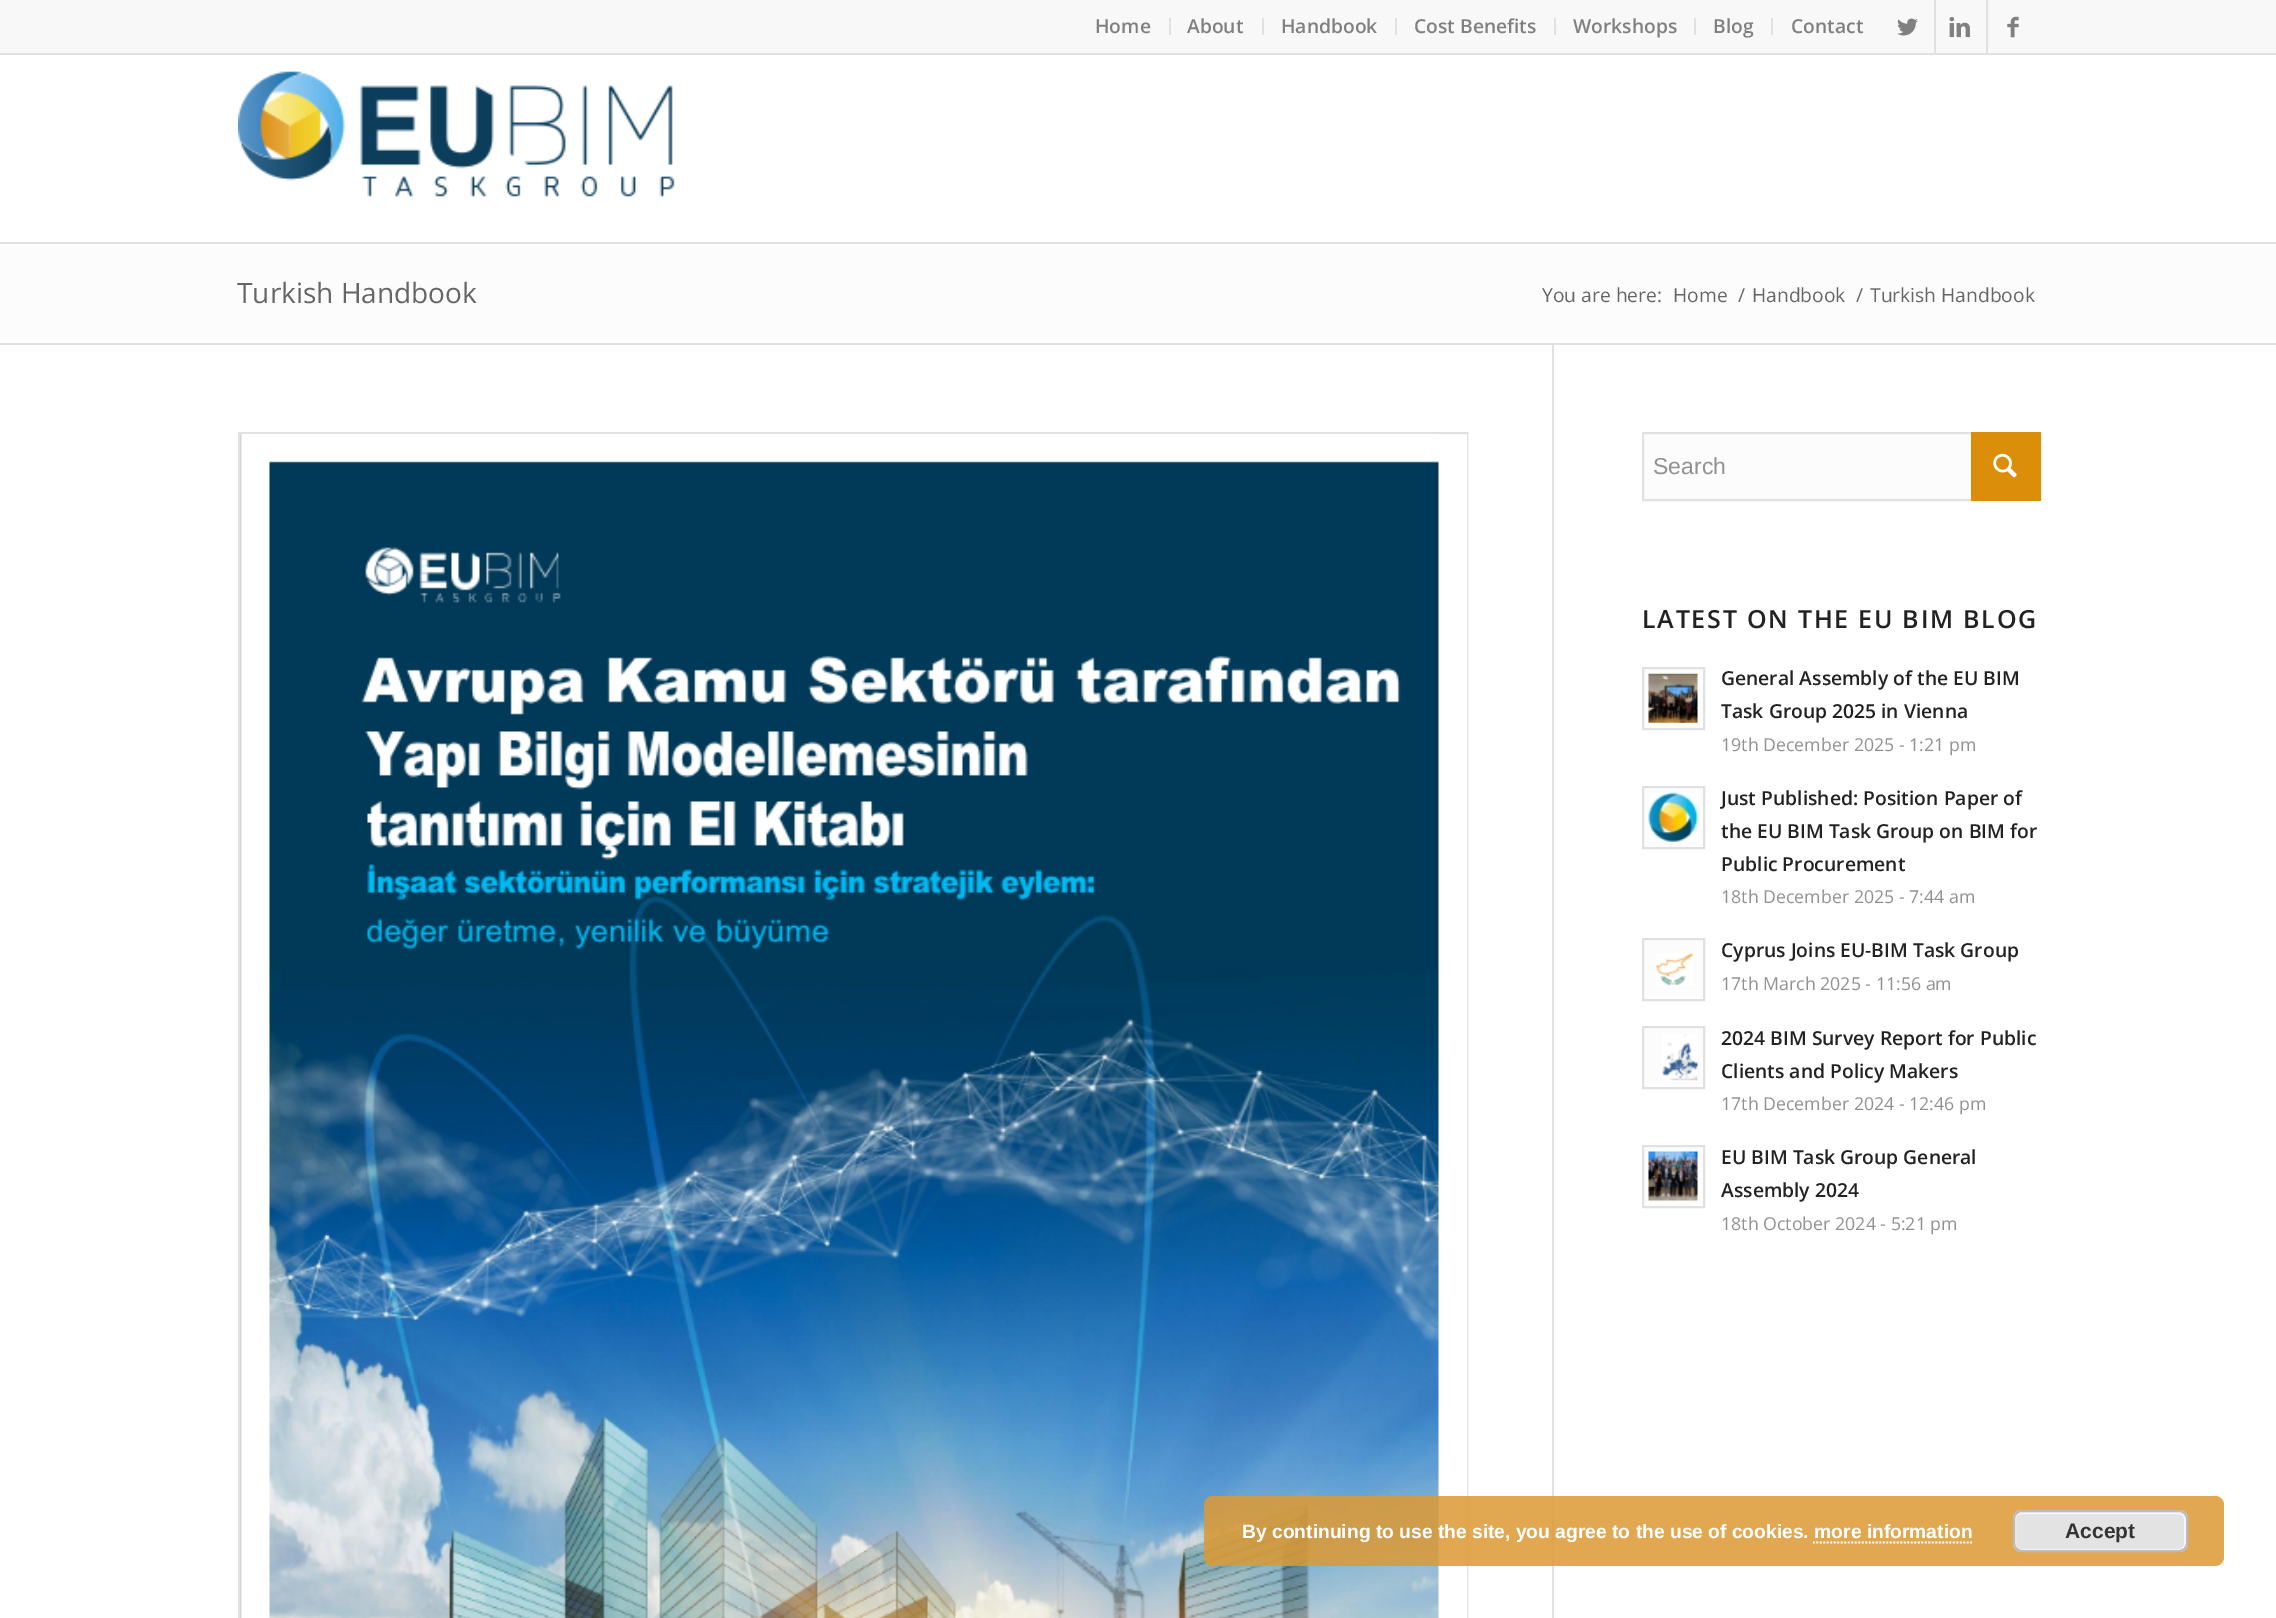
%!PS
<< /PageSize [2276 1618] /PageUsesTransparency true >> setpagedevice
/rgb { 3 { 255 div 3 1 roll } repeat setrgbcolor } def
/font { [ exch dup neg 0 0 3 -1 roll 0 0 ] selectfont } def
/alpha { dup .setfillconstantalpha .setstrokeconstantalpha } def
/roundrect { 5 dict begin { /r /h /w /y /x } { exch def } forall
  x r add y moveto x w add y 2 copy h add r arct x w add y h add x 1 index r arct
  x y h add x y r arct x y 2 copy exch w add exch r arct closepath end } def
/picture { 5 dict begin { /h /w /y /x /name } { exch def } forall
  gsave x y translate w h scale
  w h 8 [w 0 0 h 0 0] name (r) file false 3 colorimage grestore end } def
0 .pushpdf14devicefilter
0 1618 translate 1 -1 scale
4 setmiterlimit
255 255 255 rgb
0 0 2276 1618 rectfill
[
  [0 0 2276 53 248 248 248]
  [0 53 2276 2 225 225 225]
  [1169 18 2 17 225 225 225]
  [1262 18 2 17 225 225 225]
  [1395 18 2 17 225 225 225]
  [1554 18 2 17 225 225 225]
  [1694 18 2 17 225 225 225]
  [1771 18 2 17 225 225 225]
  [1934 0 2 53 225 225 225]
] { aload pop rgb rectfill } forall
(img/1.rgb) 1897 18 21 18 picture
1986 0 2 53 rectfill
(img/2.rgb) 1949 17 21 21 picture
(img/3.rgb) 2007 16 12 22 picture
0 242 2276 2 rectfill
(img/4.rgb) 238 71 437 126 picture
[
  [0 244 2276 99 252 252 252]
  [0 343 2276 2 225 225 225]
  [1552 345 2 1273 225 225 225]
  [240 434 2 1184 211 211 211]
] { aload pop rgb rectfill } forall
225 225 225 rgb
2 setlinewidth
239 433 1228 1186 rectstroke
255 255 255 rgb
1466 434 1 1184 rectfill
(img/5.rgb) 241 434 1198 1184 picture
252 252 252 rgb
1644 434 327 65 rectfill
225 225 225 rgb
1643 433 397 67 rectstroke
219 142 10 rgb
1971 432 70 69 rectfill
(img/6.rgb) 1993 453 24 25 picture
252 252 252 rgb
1643 668 moveto 1704 668 lineto 1704 729 lineto 1643 729 lineto closepath gsave fill grestore
225 225 225 rgb
stroke
(img/7.rgb) 1648 673 50 50 picture
252 252 252 rgb
1643 787 moveto 1704 787 lineto 1704 848 lineto 1643 848 lineto closepath gsave fill grestore
225 225 225 rgb
stroke
(img/8.rgb) 1648 792 50 50 picture
252 252 252 rgb
1643 939 moveto 1704 939 lineto 1704 1000 lineto 1643 1000 lineto closepath gsave fill grestore
225 225 225 rgb
stroke
(img/9.rgb) 1656 953 38 33 picture
252 252 252 rgb
1643 1027 moveto 1704 1027 lineto 1704 1088 lineto 1643 1088 lineto closepath gsave fill grestore
225 225 225 rgb
stroke
(img/10.rgb) 1662 1034 36 47 picture
252 252 252 rgb
1643 1146 moveto 1704 1146 lineto 1704 1207 lineto 1643 1207 lineto closepath gsave fill grestore
225 225 225 rgb
stroke
(img/11.rgb) 1648 1151 50 50 picture
0.85 alpha
221 153 51 rgb
1204 1496 1020 70 9 roundrect fill
1 alpha
227 227 227 rgb
2013 1510 175 42 9 roundrect fill
246 246 246 rgb
2015 1513 170 37 6 roundrect stroke
187 187 187 rgb
2014 1511 173 40 8 roundrect stroke
255 255 255 rgb
1.8 setlinewidth
[1.75 1.75] 0 setdash
1813 1542.5 moveto 1972 1542.5 lineto stroke
/OpenSans-SemiBold 19.25 font
128 128 128 rgb
[
  [(Home) 1095 33]
  [(About) 1187 33]
  [(Handbook) 1281 33]
  [(Cost Benefits) 1414 33]
  [(Workshops) 1573 33]
  [(Blog) 1713 33]
  [(Contact) 1791 33]
] { aload pop moveto show } forall
/OpenSans-Regular 28 font
102 102 102 rgb
237 303 moveto (Turkish Handbook) show
/OpenSans-Regular 19.25 font
[
  [(You are here:) 1542 302]
  [(Home) 1673 302]
  [(/) 1738 302]
  [(Handbook) 1752 302]
  [(/) 1856 302]
  [(Turkish Handbook) 1870 302]
] { aload pop moveto show } forall
/LiberationSans-Regular 23 font
145 145 145 rgb
1653 474 moveto (Search) show
/OpenSans-SemiBold 25 font
34 34 34 rgb
1642 628 moveto 1.75 0 (LATEST ON THE EU BIM BLOG) ashow
/OpenSans-SemiBold 19.3 font
1721 685 moveto (General Assembly of the EU BIM) show
1721 718 moveto (Task Group 2025 in Vienna) show
/OpenSans-Regular 17.75 font
145 145 145 rgb
1721 751 moveto (19th December 2025 - 1:21 pm) show
gsave
1720 782 321 132 rectclip
/OpenSans-SemiBold 19.3 font
34 34 34 rgb
1721 805 moveto (Just Published: Position Paper of) show
grestore
/OpenSans-SemiBold 19.3 font
34 34 34 rgb
1721 838 moveto (the EU BIM Task Group on BIM for) show
1721 871 moveto (Public Procurement) show
/OpenSans-Regular 17.75 font
145 145 145 rgb
1721 903 moveto (18th December 2025 - 7:44 am) show
/OpenSans-SemiBold 19.3 font
34 34 34 rgb
1721 957 moveto (Cyprus Joins EU-BIM Task Group) show
/OpenSans-Regular 17.75 font
145 145 145 rgb
1721 990 moveto (17th March 2025 - 11:56 am) show
/OpenSans-SemiBold 19.3 font
34 34 34 rgb
1721 1045 moveto (2024 BIM Survey Report for Public) show
1721 1078 moveto (Clients and Policy Makers) show
/OpenSans-Regular 17.75 font
145 145 145 rgb
1721 1110 moveto (17th December 2024 - 12:46 pm) show
/OpenSans-SemiBold 19.3 font
34 34 34 rgb
1721 1164 moveto (EU BIM Task Group General) show
1721 1197 moveto (Assembly 2024) show
/OpenSans-Regular 17.75 font
145 145 145 rgb
1721 1230 moveto (18th October 2024 - 5:21 pm) show
/LiberationSans-Bold 19.25 font
255 255 255 rgb
1242 1538 moveto (By continuing to use the site, you agree to the use of cookies. more information) show
/LiberationSans-Bold 21 font
51 51 51 rgb
2065 1538 moveto (Accept) show
.poppdf14devicefilter showpage
